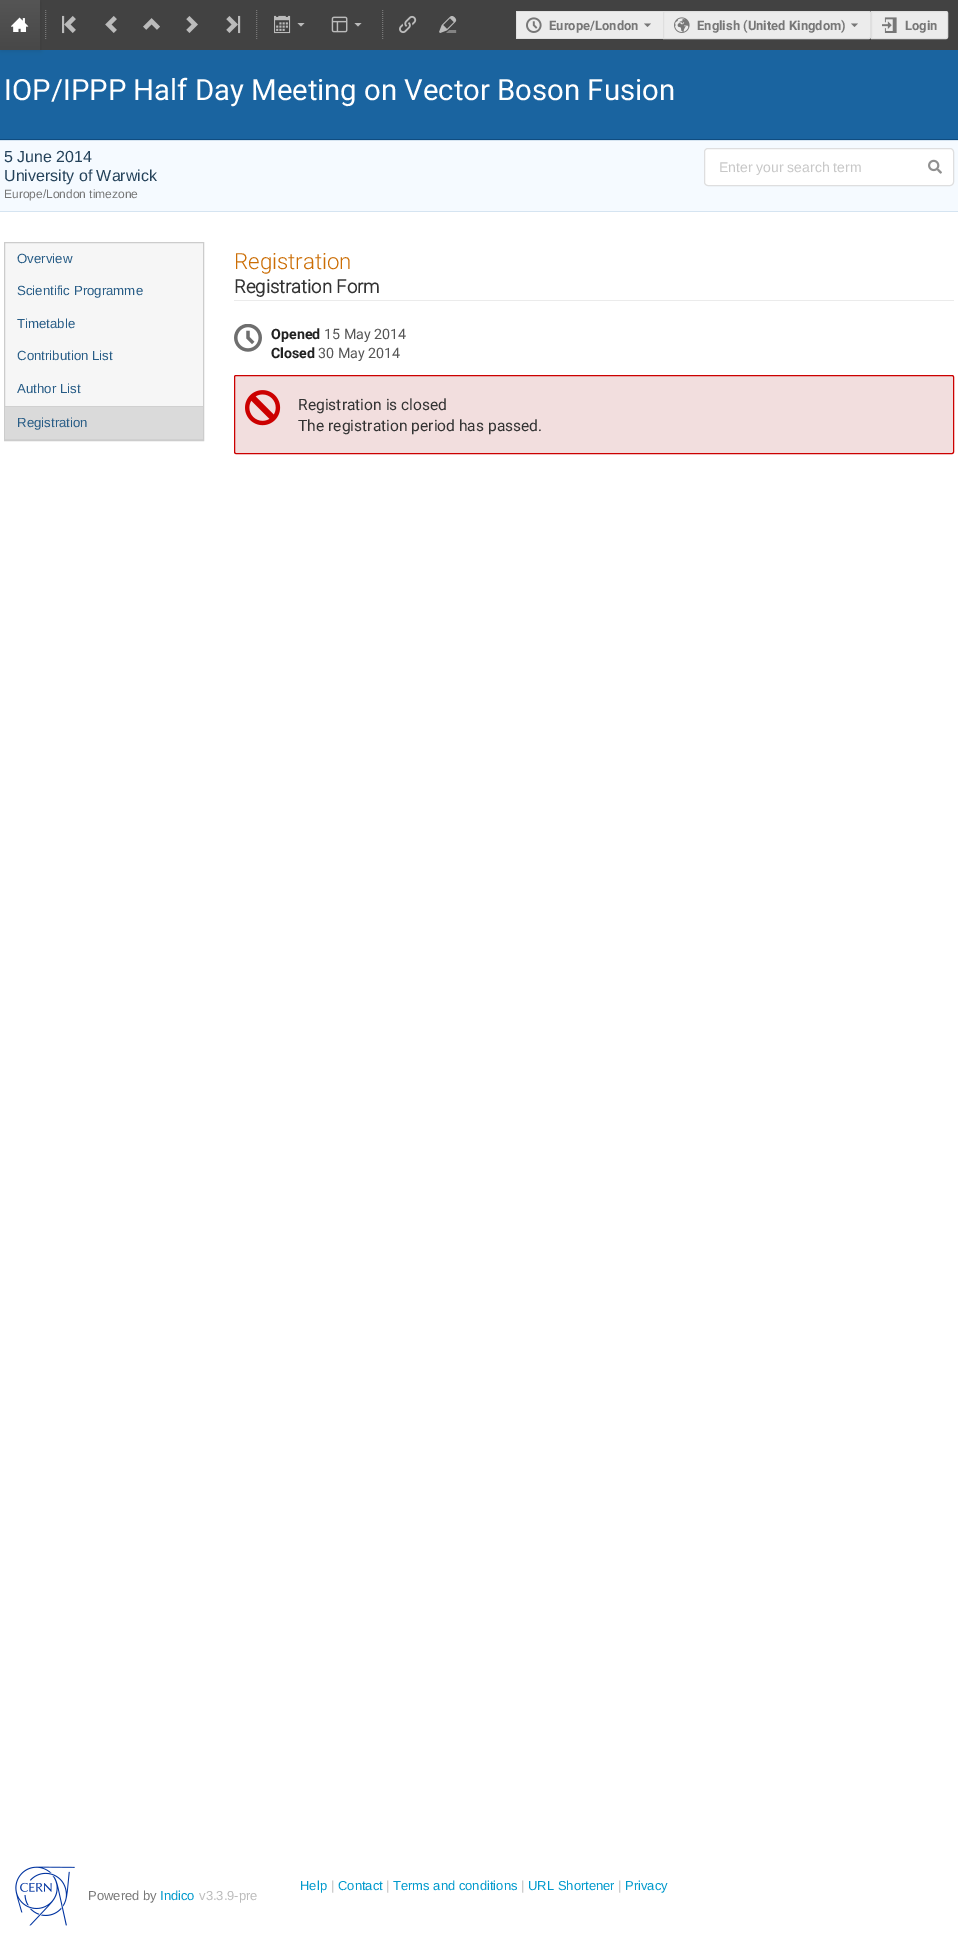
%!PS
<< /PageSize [958 1941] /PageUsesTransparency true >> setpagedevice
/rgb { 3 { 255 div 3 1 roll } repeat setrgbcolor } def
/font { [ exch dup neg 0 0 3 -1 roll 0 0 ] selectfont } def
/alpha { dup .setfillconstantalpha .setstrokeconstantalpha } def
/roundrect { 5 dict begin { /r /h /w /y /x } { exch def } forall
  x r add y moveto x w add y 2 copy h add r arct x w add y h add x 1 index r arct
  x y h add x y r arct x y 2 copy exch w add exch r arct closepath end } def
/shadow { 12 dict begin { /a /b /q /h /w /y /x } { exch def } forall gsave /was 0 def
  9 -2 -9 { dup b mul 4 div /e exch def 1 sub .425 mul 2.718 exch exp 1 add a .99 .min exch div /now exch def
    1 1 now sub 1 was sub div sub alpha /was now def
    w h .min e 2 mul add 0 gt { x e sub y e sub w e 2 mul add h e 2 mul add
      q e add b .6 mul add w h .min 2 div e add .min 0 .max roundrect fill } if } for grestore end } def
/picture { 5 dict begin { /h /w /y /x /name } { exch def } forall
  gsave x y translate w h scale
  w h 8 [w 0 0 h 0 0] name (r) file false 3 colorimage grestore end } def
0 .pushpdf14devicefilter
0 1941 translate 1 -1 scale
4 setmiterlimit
255 255 255 rgb
0 0 958 1941 rectfill
66 66 66 rgb
40 0 918 50 rectfill
26 100 160 rgb
0 50 958 89 rectfill
20 20 20 rgb
1 1 40 50 0 2 0.1 shadow
gsave 0 0 moveto 40 0 lineto 40 50 lineto 0 50 lineto closepath clip newpath
<< /ShadingType 2 /ColorSpace /DeviceRGB /Coords [20 0 20 50] /Extend [true true] /Function << /FunctionType 2 /Domain [0 1] /C0 [0.333 0.333 0.333] /C1 [0.282 0.282 0.282] /N 1 >> >> shfill grestore
(img/1.rgb) 11 17 18 15 picture
119 119 119 rgb
[1 1] 0 setdash
45.5 10 moveto 45.5 40 lineto stroke
(img/2.rgb) 62 15 14 19 picture
(img/3.rgb) 105 16 12 17 picture
(img/4.rgb) 143 18 17 12 picture
(img/5.rgb) 186 16 12 17 picture
(img/6.rgb) 226 15 15 19 picture
256.5 10 moveto 256.5 40 lineto stroke
(img/7.rgb) 274 15 17 19 picture
187 187 187 rgb
297.5 23 moveto 301 26.5 lineto 304.5 23 lineto closepath fill
(img/8.rgb) 331 16 17 17 picture
354.5 23 moveto 358 26.5 lineto 361.5 23 lineto closepath fill
119 119 119 rgb
382.5 10 moveto 382.5 40 lineto stroke
(img/9.rgb) 399 15 18 19 picture
(img/10.rgb) 439 16 18 17 picture
[
  [517 12 146 26 236 236 236]
  [516 11 147 1 223 223 223]
  [516 38 147 1 223 223 223]
  [516 11 1 28 223 223 223]
] { aload pop rgb rectfill } forall
(img/11.rgb) 526 17 16 16 picture
119 119 119 rgb
644 23.5 moveto 647.5 27 lineto 651 23.5 lineto closepath fill
236 236 236 rgb
663.5 11.5 moveto 869 11.5 lineto 870 11.5 870.5 12 870.5 13 curveto 870.5 37 lineto 870.5 38 870 38.5 869 38.5 curveto 663.5 38.5 lineto closepath gsave fill grestore
223 223 223 rgb
[] 0 setdash
stroke
(img/12.rgb) 674 17 16 16 picture
119 119 119 rgb
851 23.5 moveto 854.5 27 lineto 858 23.5 lineto closepath fill
236 236 236 rgb
871.5 11.5 moveto 946 11.5 lineto 947 11.5 947.5 12 947.5 13 curveto 947.5 37 lineto 947.5 38 947 38.5 946 38.5 curveto 871.5 38.5 lineto closepath gsave fill grestore
223 223 223 rgb
stroke
(img/13.rgb) 882 17 15 16 picture
[
  [0 139 958 1 15 76 128]
  [0 141 958 70 245 250 255]
  [0 140 958 1 213 228 241]
  [0 211 958 1 213 228 241]
] { aload pop rgb rectfill } forall
255 255 255 rgb
704 148 250 38 4 roundrect fill
0.15 alpha
34 36 38 rgb
704.5 148.5 249 37 3.5 roundrect stroke
1 alpha
(img/14.rgb) 928 159 14 15 picture
246 246 246 rgb
5 243 198 163 rectfill
204 204 204 rgb
4.5 242.5 199 198 rectstroke
[
  [5 407 198 32 218 218 218]
  [5 406 198 1 208 208 208]
  [5 439 198 1 208 208 208]
  [234 300 720 1 235 235 235]
] { aload pop rgb rectfill } forall
(img/15.rgb) 234 324 28 28 picture
242 222 222 rgb
234.5 375.5 719 78 1.5 roundrect gsave fill grestore
204 0 0 rgb
stroke
(img/16.rgb) 245 390 36 36 picture
(img/17.rgb) 15 1866 60 60 picture
/Roboto-Bold 13 font
119 119 119 rgb
[
  [(Europe/London) 549 30]
  [(English \(United Kingdom\)) 697 30]
  [(Login) 905 30]
] { aload pop moveto show } forall
/Roboto-Regular 29.3 font
255 255 255 rgb
4 100 moveto (IOP/IPPP Half Day Meeting on Vector Boson Fusion) show
/LiberationSans-Regular 16 font
36 66 90 rgb
4 162 moveto (5 June 2014) show
4 181 moveto (University of Warwick) show
/LiberationSans-Regular 12 font
119 119 119 rgb
4 198 moveto (Europe/London timezone) show
/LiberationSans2-Regular 14 font
199 199 199 rgb
719 172 moveto (Enter your search term) show
/LiberationSans2-Regular 13.25 font
39 92 134 rgb
[
  [(Overview) 17 263]
  [(Scientific Programme) 17 295]
  [(Timetable) 17 328]
  [(Contribution List) 17 360]
  [(Author List) 17 393]
  [(Registration) 17 427]
] { aload pop moveto show } forall
/Roboto-Light 22.25 font
203 109 4 rgb
234 269 moveto (Registration) show
/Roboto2-Bold 18.5 font
51 51 51 rgb
234 293 moveto (Registration Form) show
/Roboto-Bold 14.25 font
33 33 33 rgb
271 339 moveto (Opened) show
/Roboto-Regular 14.25 font
85 85 85 rgb
324 339 moveto (15 May 2014) show
/Roboto-Bold 14.25 font
33 33 33 rgb
271 358 moveto (Closed) show
/Roboto-Regular 14.25 font
85 85 85 rgb
318 358 moveto (30 May 2014) show
/Roboto-Regular 15.6 font
51 51 51 rgb
298 410 moveto (Registration is closed) show
298 431 moveto (The registration period has passed.) show
/LiberationSans-Regular 13 font
0 153 204 rgb
300 1890 moveto (Help) show
187 187 187 rgb
331 1890 moveto (|) show
0 153 204 rgb
338 1890 moveto (Contact) show
187 187 187 rgb
386 1890 moveto (|) show
0 153 204 rgb
393 1890 moveto (Terms and conditions) show
187 187 187 rgb
521 1890 moveto (|) show
0 153 204 rgb
528 1890 moveto (URL Shortener) show
187 187 187 rgb
618 1890 moveto (|) show
0 153 204 rgb
625 1890 moveto (Privacy) show
119 119 119 rgb
88 1900 moveto (Powered by) show
0 153 204 rgb
160 1900 moveto (Indico) show
187 187 187 rgb
199 1900 moveto (v3.3.9-pre) show
.poppdf14devicefilter showpage
